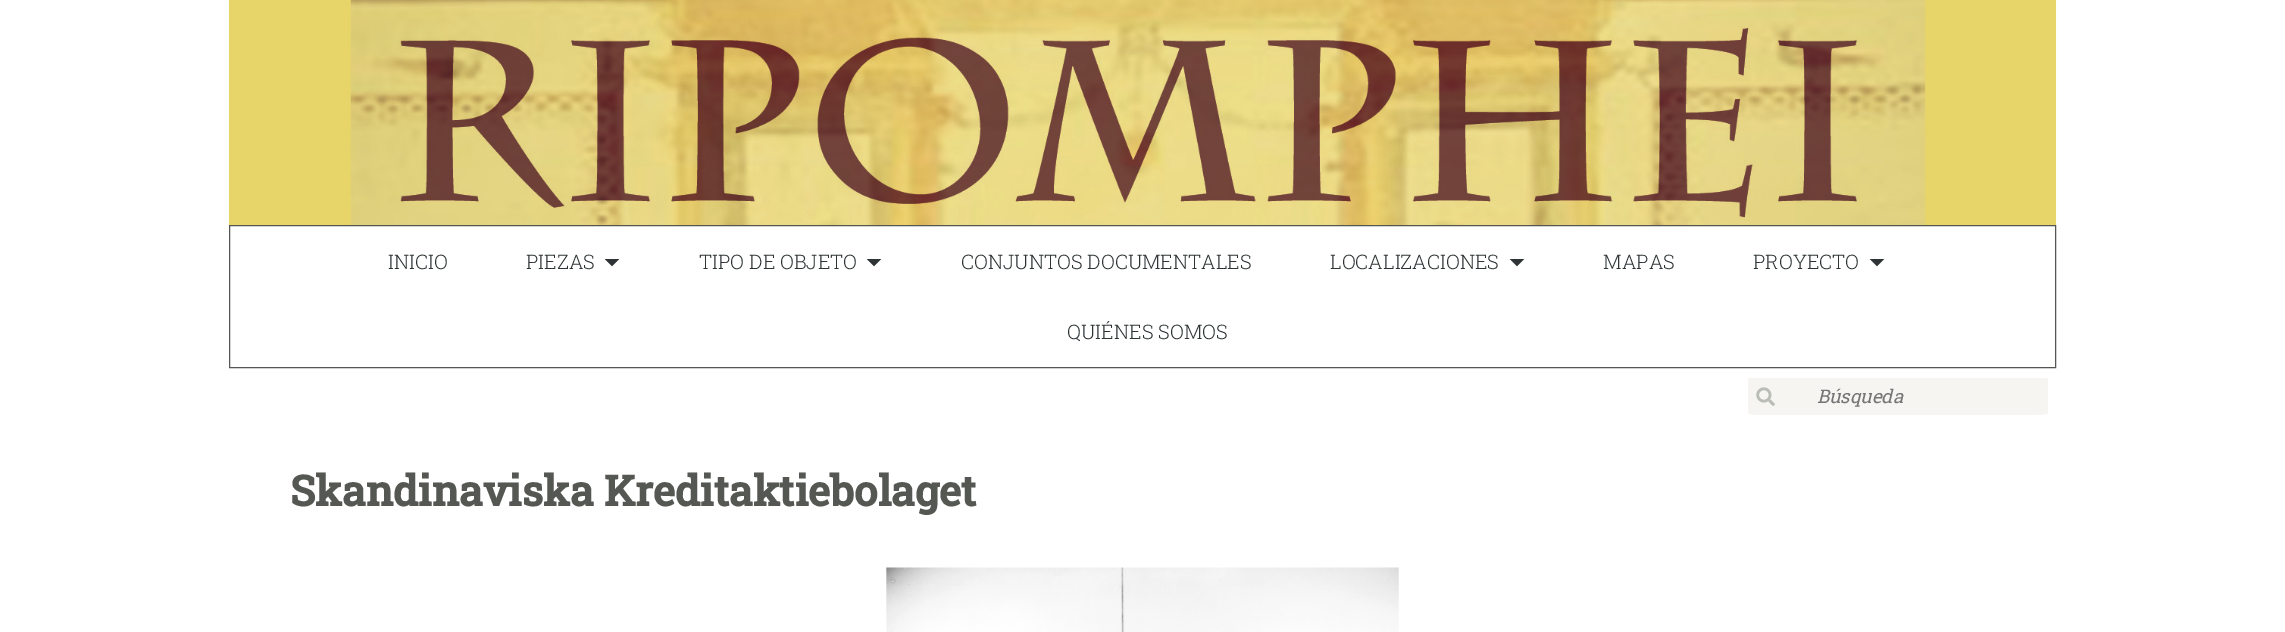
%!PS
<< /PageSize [2285 632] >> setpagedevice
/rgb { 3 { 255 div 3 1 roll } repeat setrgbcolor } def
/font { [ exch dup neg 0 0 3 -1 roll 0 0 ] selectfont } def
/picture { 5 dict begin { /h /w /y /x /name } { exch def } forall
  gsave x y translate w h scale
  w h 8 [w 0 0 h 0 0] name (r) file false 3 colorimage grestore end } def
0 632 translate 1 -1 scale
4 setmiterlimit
255 255 255 rgb
0 0 2285 632 rectfill
(img/1.rgb) 228 0 1829 225 picture
85 87 83 rgb
229.5 225.5 1826 142 rectstroke
247 245 241 rgb
1762 378 moveto 2032 378 lineto 2041 378 2048 378 2048 379 curveto 2048 413 lineto 2048 414 2041 415 2032 415 curveto 1762 415 lineto 1754 415 1748 414 1748 413 curveto 1748 379 lineto 1748 378 1754 378 1762 378 curveto closepath fill
(img/2.rgb) 1756 387 19 19 picture
(img/3.rgb) 886 567 513 65 picture
/RobotoSlab-Light 20 font
46 52 54 rgb
388 269 moveto (INICIO) show
526 269 moveto (PIEZAS) show
/FreeSans-Regular 20 font
604 269 moveto (⏷) show
/RobotoSlab-Light 20 font
699 269 moveto (TIPO DE OBJETO) show
/FreeSans-Regular 20 font
866 269 moveto (⏷) show
/RobotoSlab-Light 20 font
961 269 moveto (CONJUNTOS DOCUMENTALES) show
1330 269 moveto (LOCALIZACIONES) show
/FreeSans-Regular 20 font
1509 269 moveto (⏷) show
/RobotoSlab-Light 20 font
1603 269 moveto (MAPAS) show
1753 269 moveto (PROYECTO) show
/FreeSans-Regular 20 font
1869 269 moveto (⏷) show
/RobotoSlab-Light 20 font
1067 339 moveto (QUIÉNES SOMOS) show
/RobotoSlab-Italic 18.75 font
117 117 117 rgb
1817 403 moveto (Búsqueda) show
/RobotoSlab-Bold 42.25 font
85 87 83 rgb
290 506 moveto (Skandinaviska Kreditaktiebolaget) show
showpage
